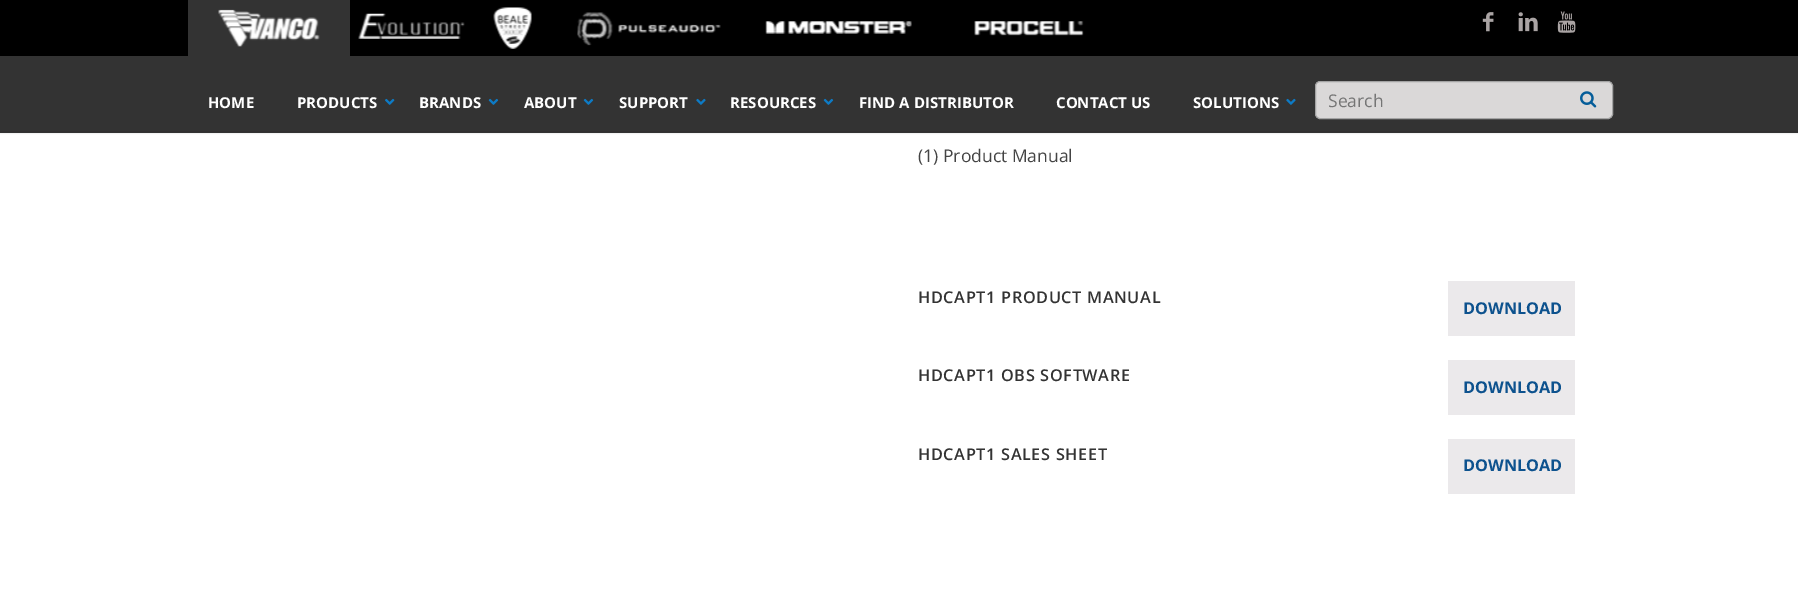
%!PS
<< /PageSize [1798 609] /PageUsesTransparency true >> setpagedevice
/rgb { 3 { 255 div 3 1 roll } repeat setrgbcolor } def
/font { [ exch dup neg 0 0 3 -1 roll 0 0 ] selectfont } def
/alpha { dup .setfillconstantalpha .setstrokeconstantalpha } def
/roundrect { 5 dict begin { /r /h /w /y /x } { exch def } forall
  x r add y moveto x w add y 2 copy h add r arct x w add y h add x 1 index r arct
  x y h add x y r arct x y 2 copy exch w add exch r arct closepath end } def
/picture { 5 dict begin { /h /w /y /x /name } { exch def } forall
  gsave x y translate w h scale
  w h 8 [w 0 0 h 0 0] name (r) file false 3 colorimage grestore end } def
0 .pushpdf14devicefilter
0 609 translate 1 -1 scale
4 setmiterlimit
255 255 255 rgb
0 0 1798 609 rectfill
0.05 alpha
0 0 0 rgb
-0.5 -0.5 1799 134 rectstroke
1 alpha
0 0 1798 56 rectfill
51 51 51 rgb
188 0 162 56 rectfill
(img/1.rgb) 218 9 102 38 picture
(img/2.rgb) 358 13 107 26 picture
(img/3.rgb) 493 7 39 42 picture
(img/4.rgb) 577 12 144 34 picture
(img/5.rgb) 765 21 147 13 picture
(img/6.rgb) 974 21 110 15 picture
(img/7.rgb) 1482 12 12 20 picture
(img/8.rgb) 1518 12 20 20 picture
(img/9.rgb) 1557 11 19 22 picture
0 56 1798 77 rectfill
49 47 48 rgb
0 131 1798 1 rectfill
(img/10.rgb) 385 98 10 7 picture
(img/11.rgb) 488 98 11 7 picture
(img/11.rgb) 583 98 11 7 picture
(img/12.rgb) 696 98 10 7 picture
(img/11.rgb) 823 98 11 7 picture
(img/12.rgb) 1286 98 10 7 picture
218 216 216 rgb
1315.5 81.5 297 37 4.5 roundrect gsave fill grestore
163 163 163 rgb
stroke
(img/13.rgb) 1580 91 17 17 picture
[
  [1448 281 127 55 235 233 235]
  [1448 360 127 55 235 233 235]
  [1448 439 127 55 235 233 235]
] { aload pop rgb rectfill } forall
/OpenSans-Bold 15 font
255 255 255 rgb
[
  [(HOME) 208 108]
  [(PRODUCTS) 297 108]
  [(BRANDS) 419 108]
  [(ABOUT) 524 108]
  [(SUPPORT) 619 108]
  [(RESOURCES) 730 108]
  [(FIND A DISTRIBUTOR) 859 108]
  [(CONTACT US) 1056 108]
  [(SOLUTIONS) 1193 108]
] { aload pop moveto show } forall
/OpenSans-Regular 17.5 font
117 117 117 rgb
1328 107 moveto (Search) show
68 68 68 rgb
918 162 moveto (\(1\) Product Manual) show
/OpenSans-SemiBold 16.25 font
51 51 51 rgb
918 303 moveto 0.65 0 (HDCAPT1 PRODUCT MANUAL) ashow
/OpenSans-Bold 16.25 font
13 82 142 rgb
1463 314 moveto (DOWNLOAD) show
/OpenSans-SemiBold 16.25 font
51 51 51 rgb
918 381 moveto 0.65 0 (HDCAPT1 OBS SOFTWARE) ashow
/OpenSans-Bold 16.25 font
13 82 142 rgb
1463 393 moveto (DOWNLOAD) show
/OpenSans-SemiBold 16.25 font
51 51 51 rgb
918 460 moveto 0.65 0 (HDCAPT1 SALES SHEET) ashow
/OpenSans-Bold 16.25 font
13 82 142 rgb
1463 471 moveto (DOWNLOAD) show
.poppdf14devicefilter showpage
